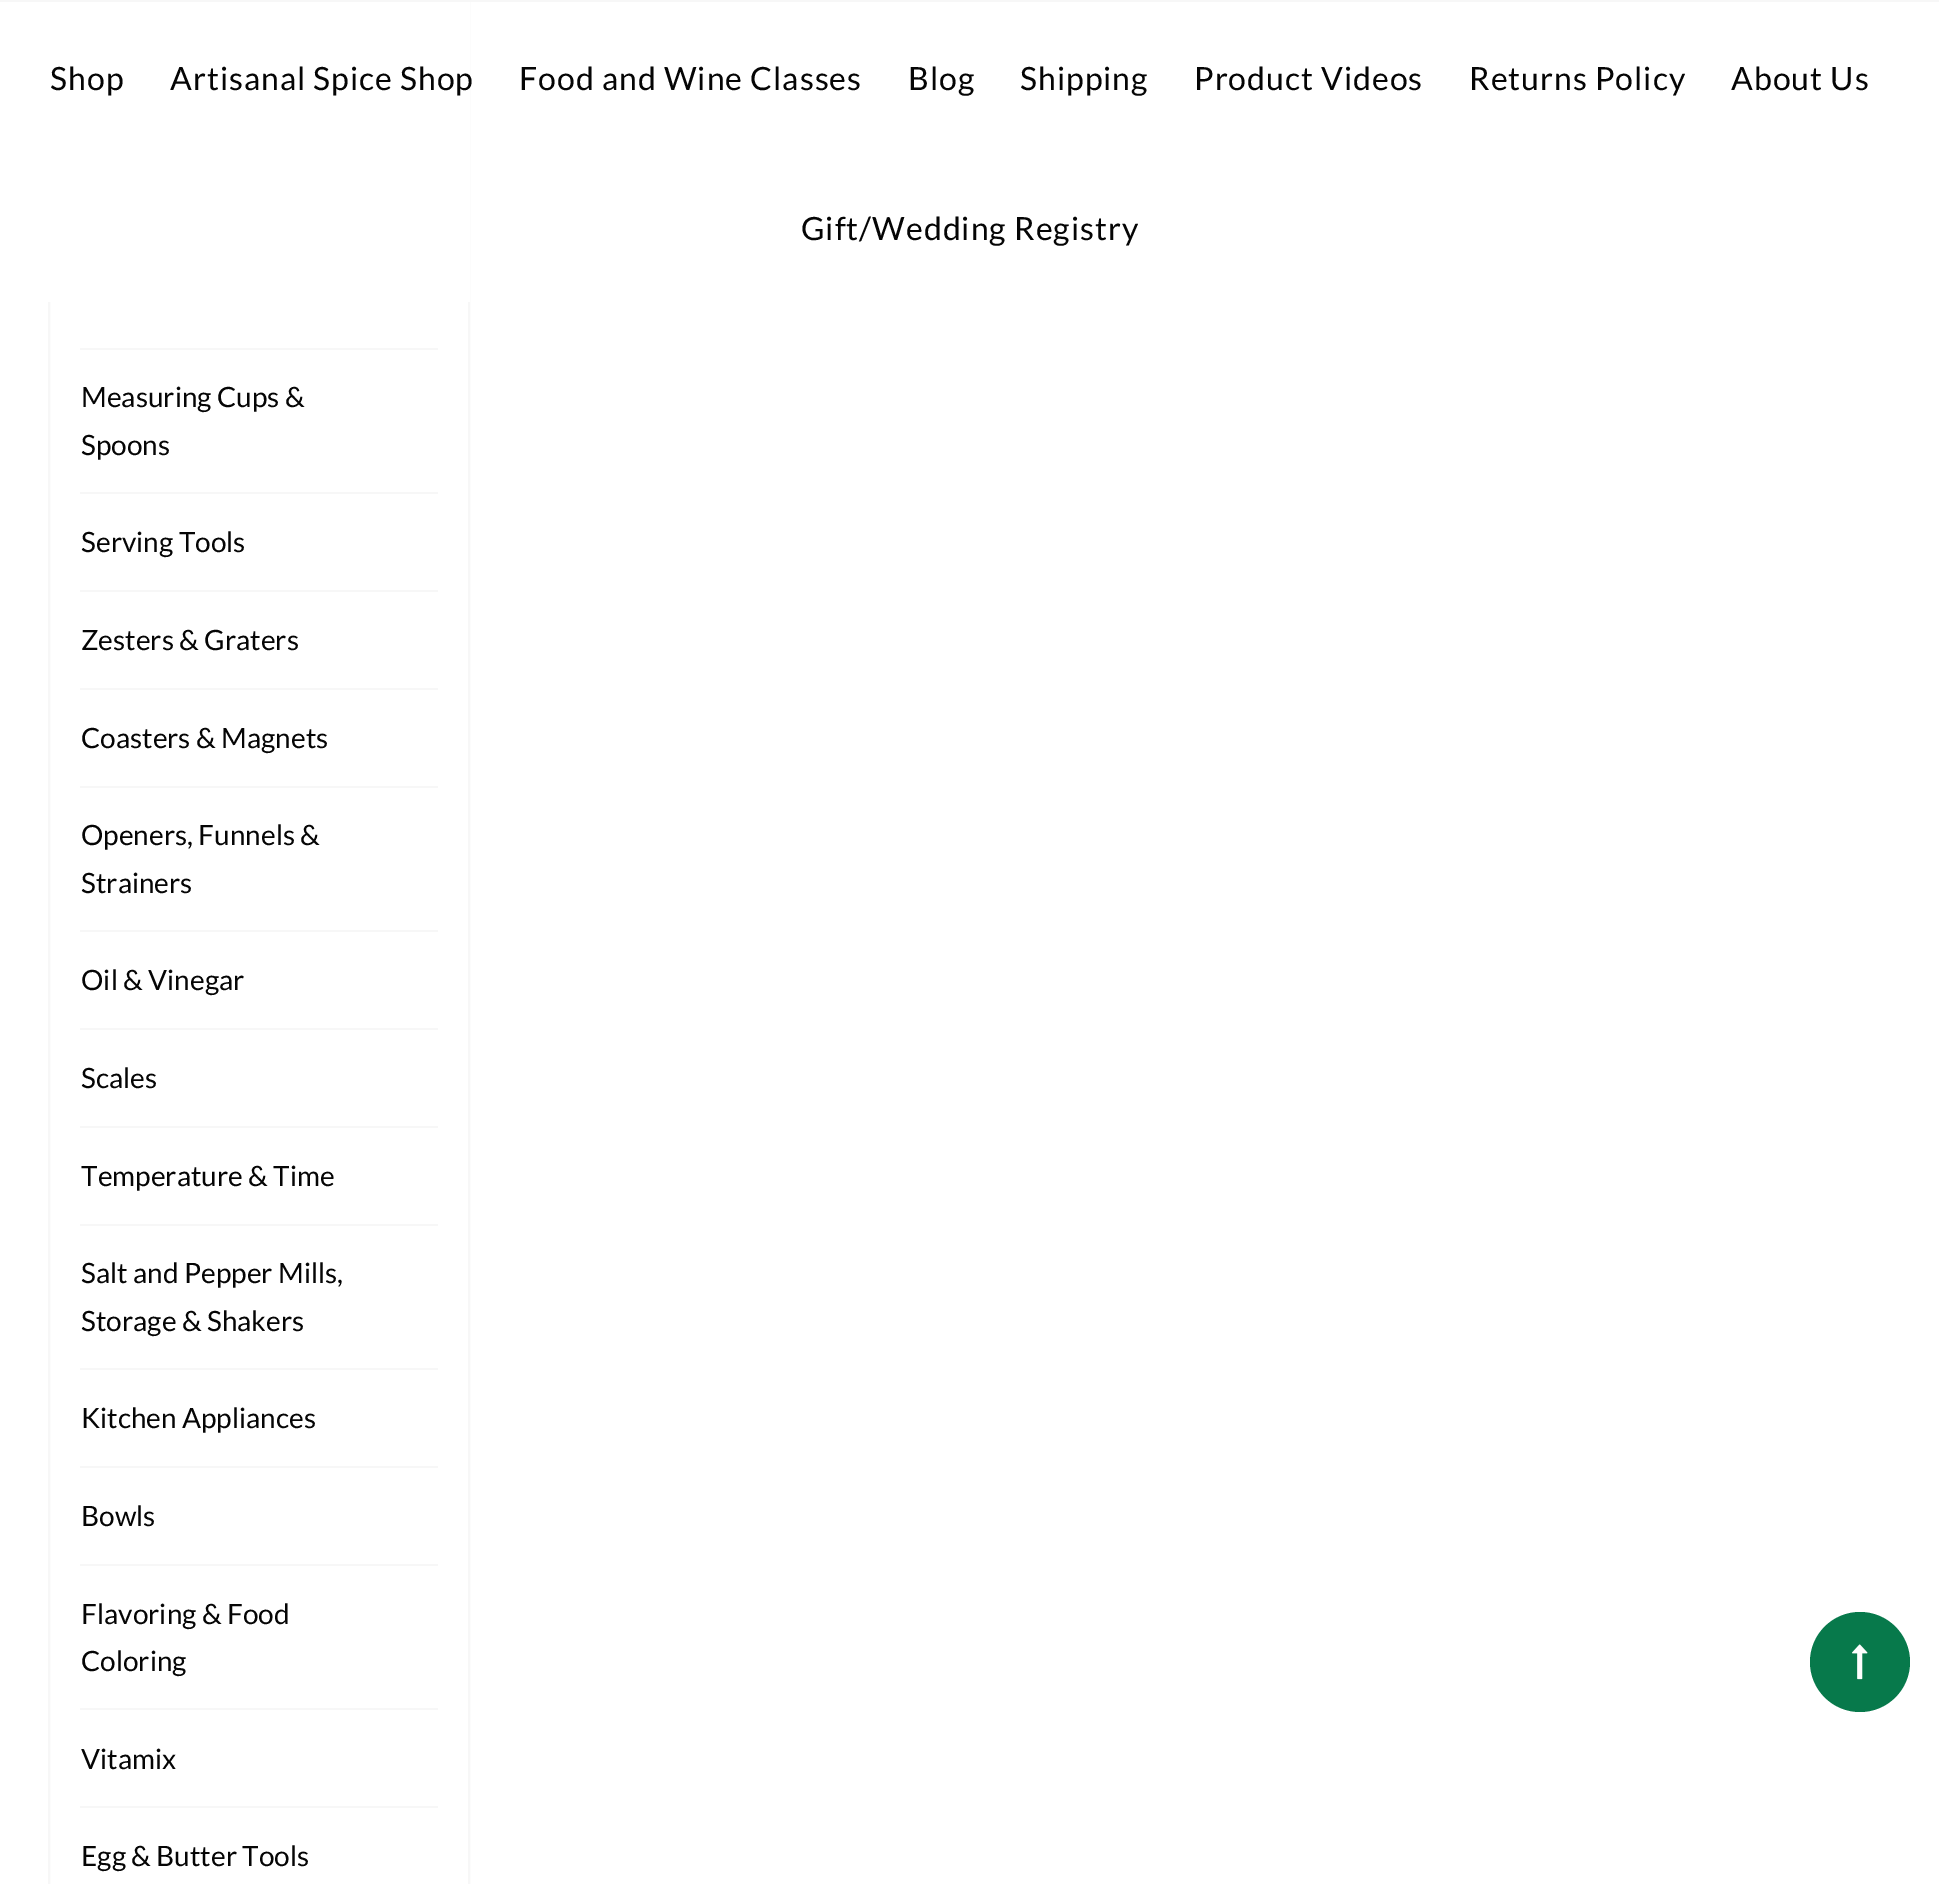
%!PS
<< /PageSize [1939 1884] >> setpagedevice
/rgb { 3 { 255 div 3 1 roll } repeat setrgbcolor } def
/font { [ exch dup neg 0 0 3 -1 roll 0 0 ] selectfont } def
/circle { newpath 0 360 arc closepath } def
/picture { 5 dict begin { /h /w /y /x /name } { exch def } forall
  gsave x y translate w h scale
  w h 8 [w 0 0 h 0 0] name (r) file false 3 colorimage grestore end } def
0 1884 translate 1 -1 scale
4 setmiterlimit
255 255 255 rgb
0 0 1939 1884 rectfill
247 247 247 rgb
2 setlinewidth
49 -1 420 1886 rectstroke
[
  [0 0 1939 2 247 247 247]
  [48 2 422 300 255 255 255]
  [80 348 358 2 247 247 247]
  [80 492 358 2 247 247 247]
  [80 590 358 2 247 247 247]
  [80 688 358 2 247 247 247]
  [80 786 358 2 247 247 247]
  [80 930 358 2 247 247 247]
  [80 1028 358 2 247 247 247]
  [80 1126 358 2 247 247 247]
  [80 1224 358 2 247 247 247]
  [80 1368 358 2 247 247 247]
  [80 1466 358 2 247 247 247]
  [80 1564 358 2 247 247 247]
  [80 1708 358 2 247 247 247]
  [80 1806 358 2 247 247 247]
] { aload pop rgb rectfill } forall
7 121 75 rgb
1860 1662 50 circle fill
(img/1.rgb) 1852 1644 16 36 picture
/Lato-Regular 32 font
5 5 5 rgb
50 90 moveto 1 0 (Shop) ashow
170 90 moveto 1 0 (Artisanal Spice Shop) ashow
519 90 moveto 1 0 (Food and Wine Classes) ashow
908 90 moveto 1 0 (Blog) ashow
1020 90 moveto 1 0 (Shipping) ashow
1194 90 moveto 1 0 (Product Videos) ashow
1469 90 moveto 1 0 (Returns Policy) ashow
1731 90 moveto 1 0 (About Us) ashow
801 240 moveto 1 0 (Gift/Wedding Registry) ashow
/Lato-Regular 28 font
[
  [(Measuring Cups &) 81 407]
  [(Spoons) 81 455]
  [(Serving Tools) 81 552]
  [(Zesters & Graters) 81 650]
  [(Coasters & Magnets) 81 748]
  [(Openers, Funnels &) 81 845]
  [(Strainers) 81 893]
  [(Oil & Vinegar) 81 990]
  [(Scales) 81 1088]
  [(Temperature & Time) 81 1186]
  [(Salt and Pepper Mills,) 81 1283]
  [(Storage & Shakers) 81 1331]
  [(Kitchen Appliances) 81 1428]
  [(Bowls) 81 1526]
  [(Flavoring & Food) 81 1624]
  [(Coloring) 81 1671]
  [(Vitamix) 81 1769]
  [(Egg & Butter Tools) 81 1866]
] { aload pop moveto show } forall
showpage
